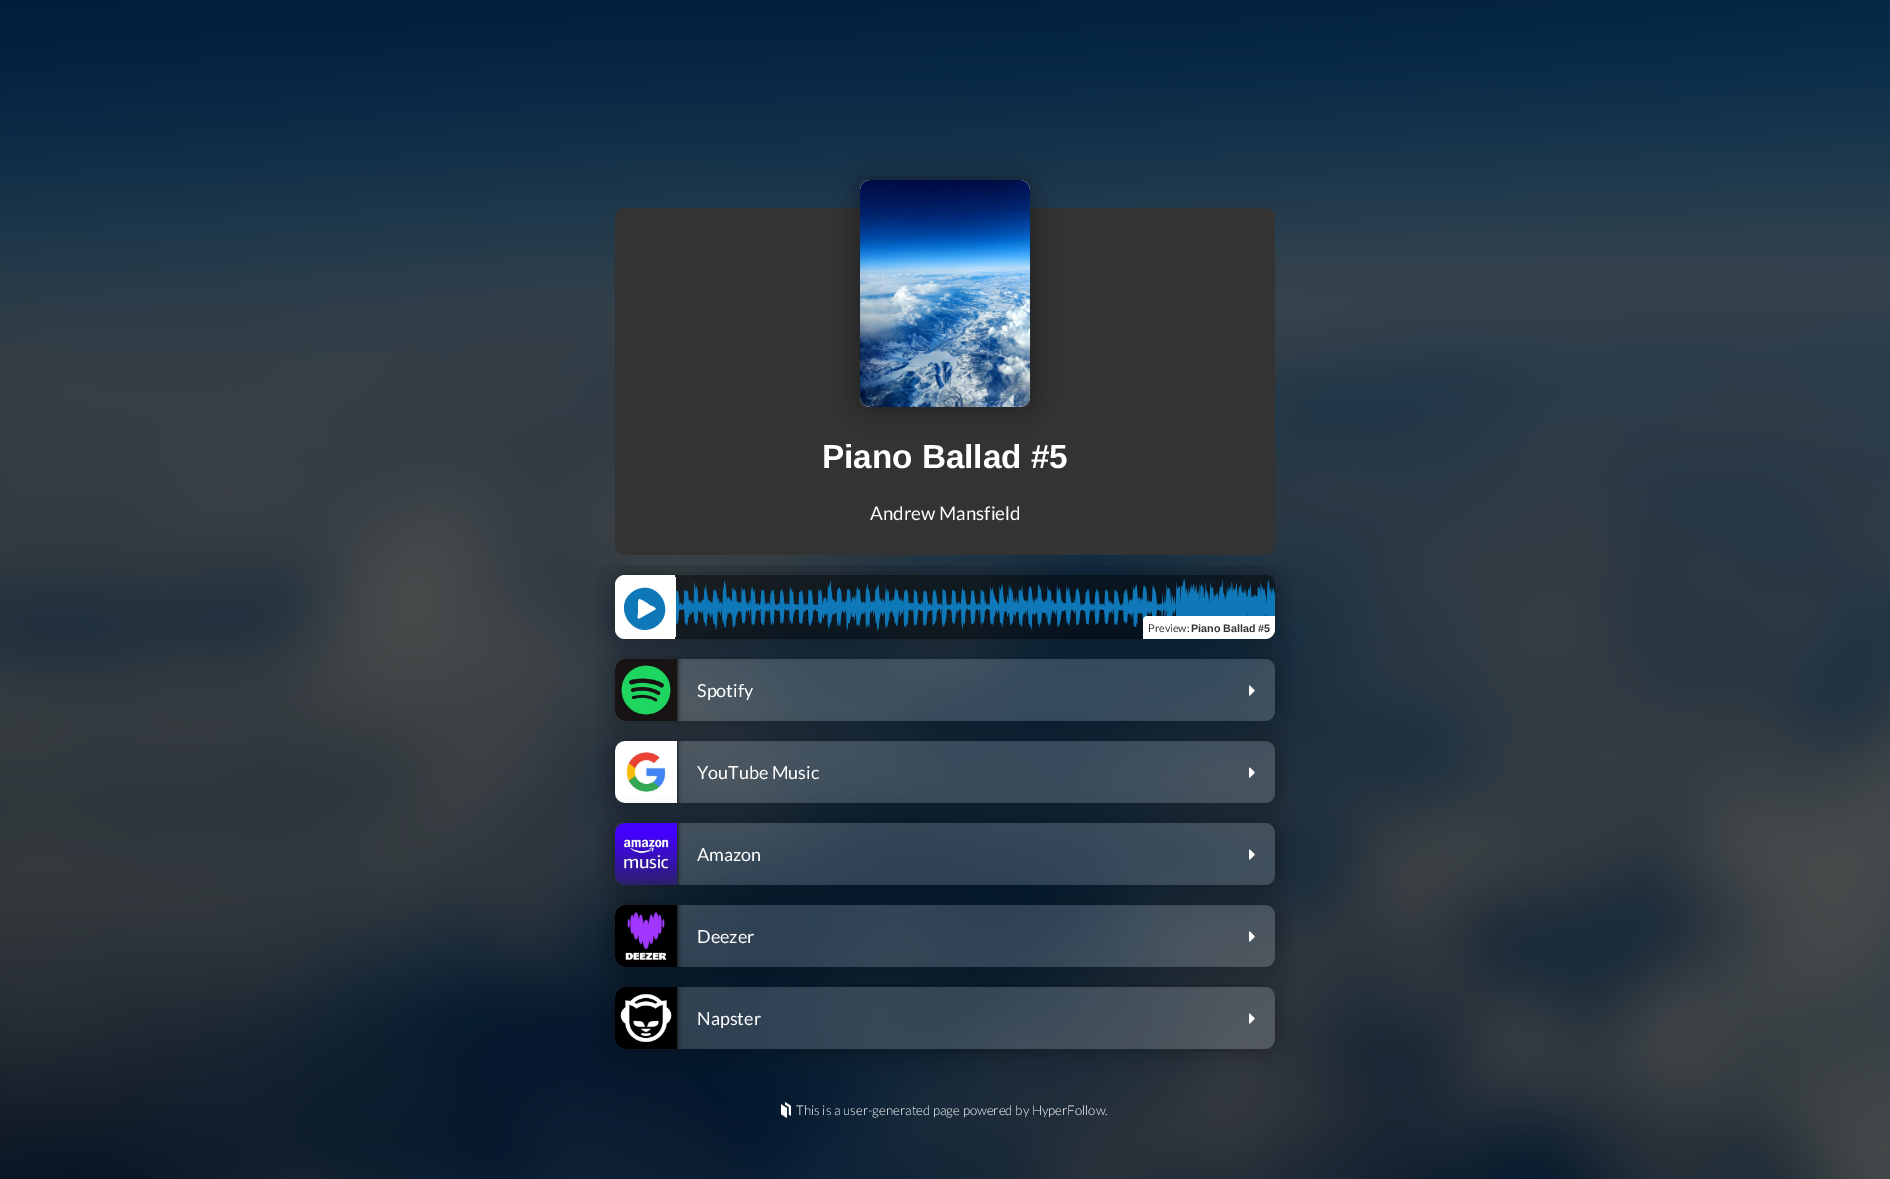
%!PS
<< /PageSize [1890 1179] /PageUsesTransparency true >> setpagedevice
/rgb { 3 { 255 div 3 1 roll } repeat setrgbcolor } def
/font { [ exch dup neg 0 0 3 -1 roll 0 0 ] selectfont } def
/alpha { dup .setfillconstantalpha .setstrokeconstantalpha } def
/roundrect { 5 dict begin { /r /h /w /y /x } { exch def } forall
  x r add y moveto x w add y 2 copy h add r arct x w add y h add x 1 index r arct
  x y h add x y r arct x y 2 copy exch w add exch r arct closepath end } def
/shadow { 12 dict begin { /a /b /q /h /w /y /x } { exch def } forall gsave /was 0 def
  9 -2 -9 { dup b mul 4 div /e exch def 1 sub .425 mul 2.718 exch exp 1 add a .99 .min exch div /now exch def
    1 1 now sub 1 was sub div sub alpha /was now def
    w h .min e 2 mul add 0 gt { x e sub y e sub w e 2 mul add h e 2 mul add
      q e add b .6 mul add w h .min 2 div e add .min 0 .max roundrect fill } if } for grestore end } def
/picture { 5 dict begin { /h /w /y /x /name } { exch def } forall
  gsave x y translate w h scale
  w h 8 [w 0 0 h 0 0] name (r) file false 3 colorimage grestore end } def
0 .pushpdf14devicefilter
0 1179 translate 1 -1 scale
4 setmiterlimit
0 0 0 rgb
0 0 1890 1179 rectfill
(img/1.rgb) 0 0 1890 1179 picture
51 51 51 rgb
615 208 660 347 10 roundrect fill
0 0 0 rgb
860 180 170 227 10 12.5 0.35 shadow
204 204 204 rgb
860 180 170 227 10 roundrect fill
(img/2.rgb) 860 180 170 227 picture
gsave
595 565 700 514 rectclip
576 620 moveto 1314 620 lineto 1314 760 lineto 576 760 lineto closepath 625 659 moveto 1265 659 lineto 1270.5 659 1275 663.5 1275 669 curveto 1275 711 lineto 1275 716.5 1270.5 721 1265 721 curveto 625 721 lineto 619.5 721 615 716.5 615 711 curveto 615 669 lineto 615 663.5 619.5 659 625 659 curveto closepath eoclip newpath
0 0 0 rgb
615 659 660 62 10 12.5 0.35 shadow
grestore
0.17 alpha
255 255 255 rgb
615 659 660 62 10 roundrect fill
gsave
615 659 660 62 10 roundrect clip newpath
1 alpha
0 0 0 rgb
615 659 62 62 0 2.5 1 shadow
grestore
1 alpha
(img/4.rgb) 615 659 62 62 picture
gsave
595 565 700 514 rectclip
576 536 moveto 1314 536 lineto 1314 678 lineto 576 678 lineto closepath 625 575 moveto 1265 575 lineto 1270.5 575 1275 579.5 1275 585 curveto 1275 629 lineto 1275 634.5 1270.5 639 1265 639 curveto 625 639 lineto 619.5 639 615 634.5 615 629 curveto 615 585 lineto 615 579.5 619.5 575 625 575 curveto closepath eoclip newpath
0 0 0 rgb
615 575 660 64 10 12.5 0.35 shadow
grestore
625 575 moveto 675 575 lineto 675 639 lineto 625 639 lineto 619.5 639 615 634.5 615 629 curveto 615 585 lineto 615 579.5 619.5 575 625 575 curveto closepath fill
15 120 184 rgb
634 591 moveto 658 577 678 613 655 627 curveto 632 640 611 605 634 591 curveto closepath 655 610 moveto 659 608 650 605 650 605 curveto 648 603 640 598 639 599 curveto 637 600 638 610 638 612 curveto 638 613 636 619 639 619 curveto closepath fill
0.5 alpha
0 0 0 rgb
675 575 moveto 1265 575 lineto 1270.5 575 1275 579.5 1275 585 curveto 1275 629 lineto 1275 634.5 1270.5 639 1265 639 curveto 675 639 lineto closepath fill
1 alpha
255 255 255 rgb
675 577 1 60 rectfill
(img/3.rgb) 676 579 599 53 picture
1147 616 moveto 1275 616 lineto 1275 629 lineto 1275 634.5 1270.5 639 1265 639 curveto 1143 639 lineto 1143 620 lineto 1143 618 1145 616 1147 616 curveto closepath fill
(img/5.rgb) 1249 685 6 11 picture
gsave
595 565 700 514 rectclip
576 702 moveto 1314 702 lineto 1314 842 lineto 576 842 lineto closepath 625 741 moveto 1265 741 lineto 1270.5 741 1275 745.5 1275 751 curveto 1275 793 lineto 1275 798.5 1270.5 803 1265 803 curveto 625 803 lineto 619.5 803 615 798.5 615 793 curveto 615 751 lineto 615 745.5 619.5 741 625 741 curveto closepath eoclip newpath
0 0 0 rgb
615 741 660 62 10 12.5 0.35 shadow
grestore
0.17 alpha
615 741 660 62 10 roundrect fill
gsave
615 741 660 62 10 roundrect clip newpath
1 alpha
0 0 0 rgb
615 741 62 62 0 2.5 1 shadow
grestore
1 alpha
(img/6.rgb) 615 741 62 62 picture
(img/7.rgb) 1249 767 6 11 picture
gsave
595 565 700 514 rectclip
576 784 moveto 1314 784 lineto 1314 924 lineto 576 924 lineto closepath 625 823 moveto 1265 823 lineto 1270.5 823 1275 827.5 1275 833 curveto 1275 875 lineto 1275 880.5 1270.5 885 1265 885 curveto 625 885 lineto 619.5 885 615 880.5 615 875 curveto 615 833 lineto 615 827.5 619.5 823 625 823 curveto closepath eoclip newpath
0 0 0 rgb
615 823 660 62 10 12.5 0.35 shadow
grestore
0.17 alpha
615 823 660 62 10 roundrect fill
gsave
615 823 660 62 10 roundrect clip newpath
1 alpha
0 0 0 rgb
615 823 62 62 0 2.5 1 shadow
grestore
1 alpha
(img/8.rgb) 615 823 62 62 picture
(img/9.rgb) 1249 849 6 11 picture
gsave
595 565 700 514 rectclip
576 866 moveto 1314 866 lineto 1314 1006 lineto 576 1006 lineto closepath 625 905 moveto 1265 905 lineto 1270.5 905 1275 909.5 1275 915 curveto 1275 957 lineto 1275 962.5 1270.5 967 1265 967 curveto 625 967 lineto 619.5 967 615 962.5 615 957 curveto 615 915 lineto 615 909.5 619.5 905 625 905 curveto closepath eoclip newpath
0 0 0 rgb
615 905 660 62 10 12.5 0.35 shadow
grestore
0.17 alpha
615 905 660 62 10 roundrect fill
gsave
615 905 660 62 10 roundrect clip newpath
1 alpha
0 0 0 rgb
615 905 62 62 0 2.5 1 shadow
grestore
1 alpha
(img/10.rgb) 615 905 62 62 picture
(img/11.rgb) 1249 931 6 11 picture
gsave
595 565 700 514 rectclip
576 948 moveto 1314 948 lineto 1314 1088 lineto 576 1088 lineto closepath 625 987 moveto 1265 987 lineto 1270.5 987 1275 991.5 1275 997 curveto 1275 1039 lineto 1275 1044.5 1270.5 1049 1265 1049 curveto 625 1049 lineto 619.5 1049 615 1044.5 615 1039 curveto 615 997 lineto 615 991.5 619.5 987 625 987 curveto closepath eoclip newpath
0 0 0 rgb
615 987 660 62 10 12.5 0.35 shadow
grestore
0.17 alpha
615 987 660 62 10 roundrect fill
gsave
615 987 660 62 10 roundrect clip newpath
1 alpha
0 0 0 rgb
615 987 62 62 0 2.5 1 shadow
grestore
1 alpha
(img/12.rgb) 615 987 62 62 picture
(img/13.rgb) 1249 1013 6 11 picture
(img/14.rgb) 781 1102 10 16 picture
/LiberationSans-Bold 33.25 font
822 468 moveto (Piano Ballad #5) show
/Lato-Regular 18.75 font
870 520 moveto (Andrew Mansfield) show
/Lato-Regular 10.75 font
51 51 51 rgb
1148 632 moveto (Preview:) show
/LiberationSans-Bold 10.75 font
1191 632 moveto (Piano Ballad #5) show
/Lato-Regular 18 font
255 255 255 rgb
[
  [(Spotify) 697 697]
  [(YouTube Music) 697 779]
  [(Amazon) 697 861]
  [(Deezer) 697 943]
  [(Napster) 697 1025]
] { aload pop moveto show } forall
/Lato-Light 13.3 font
796 1115 moveto (This is a user-generated page powered by HyperFollow.) show
.poppdf14devicefilter showpage
